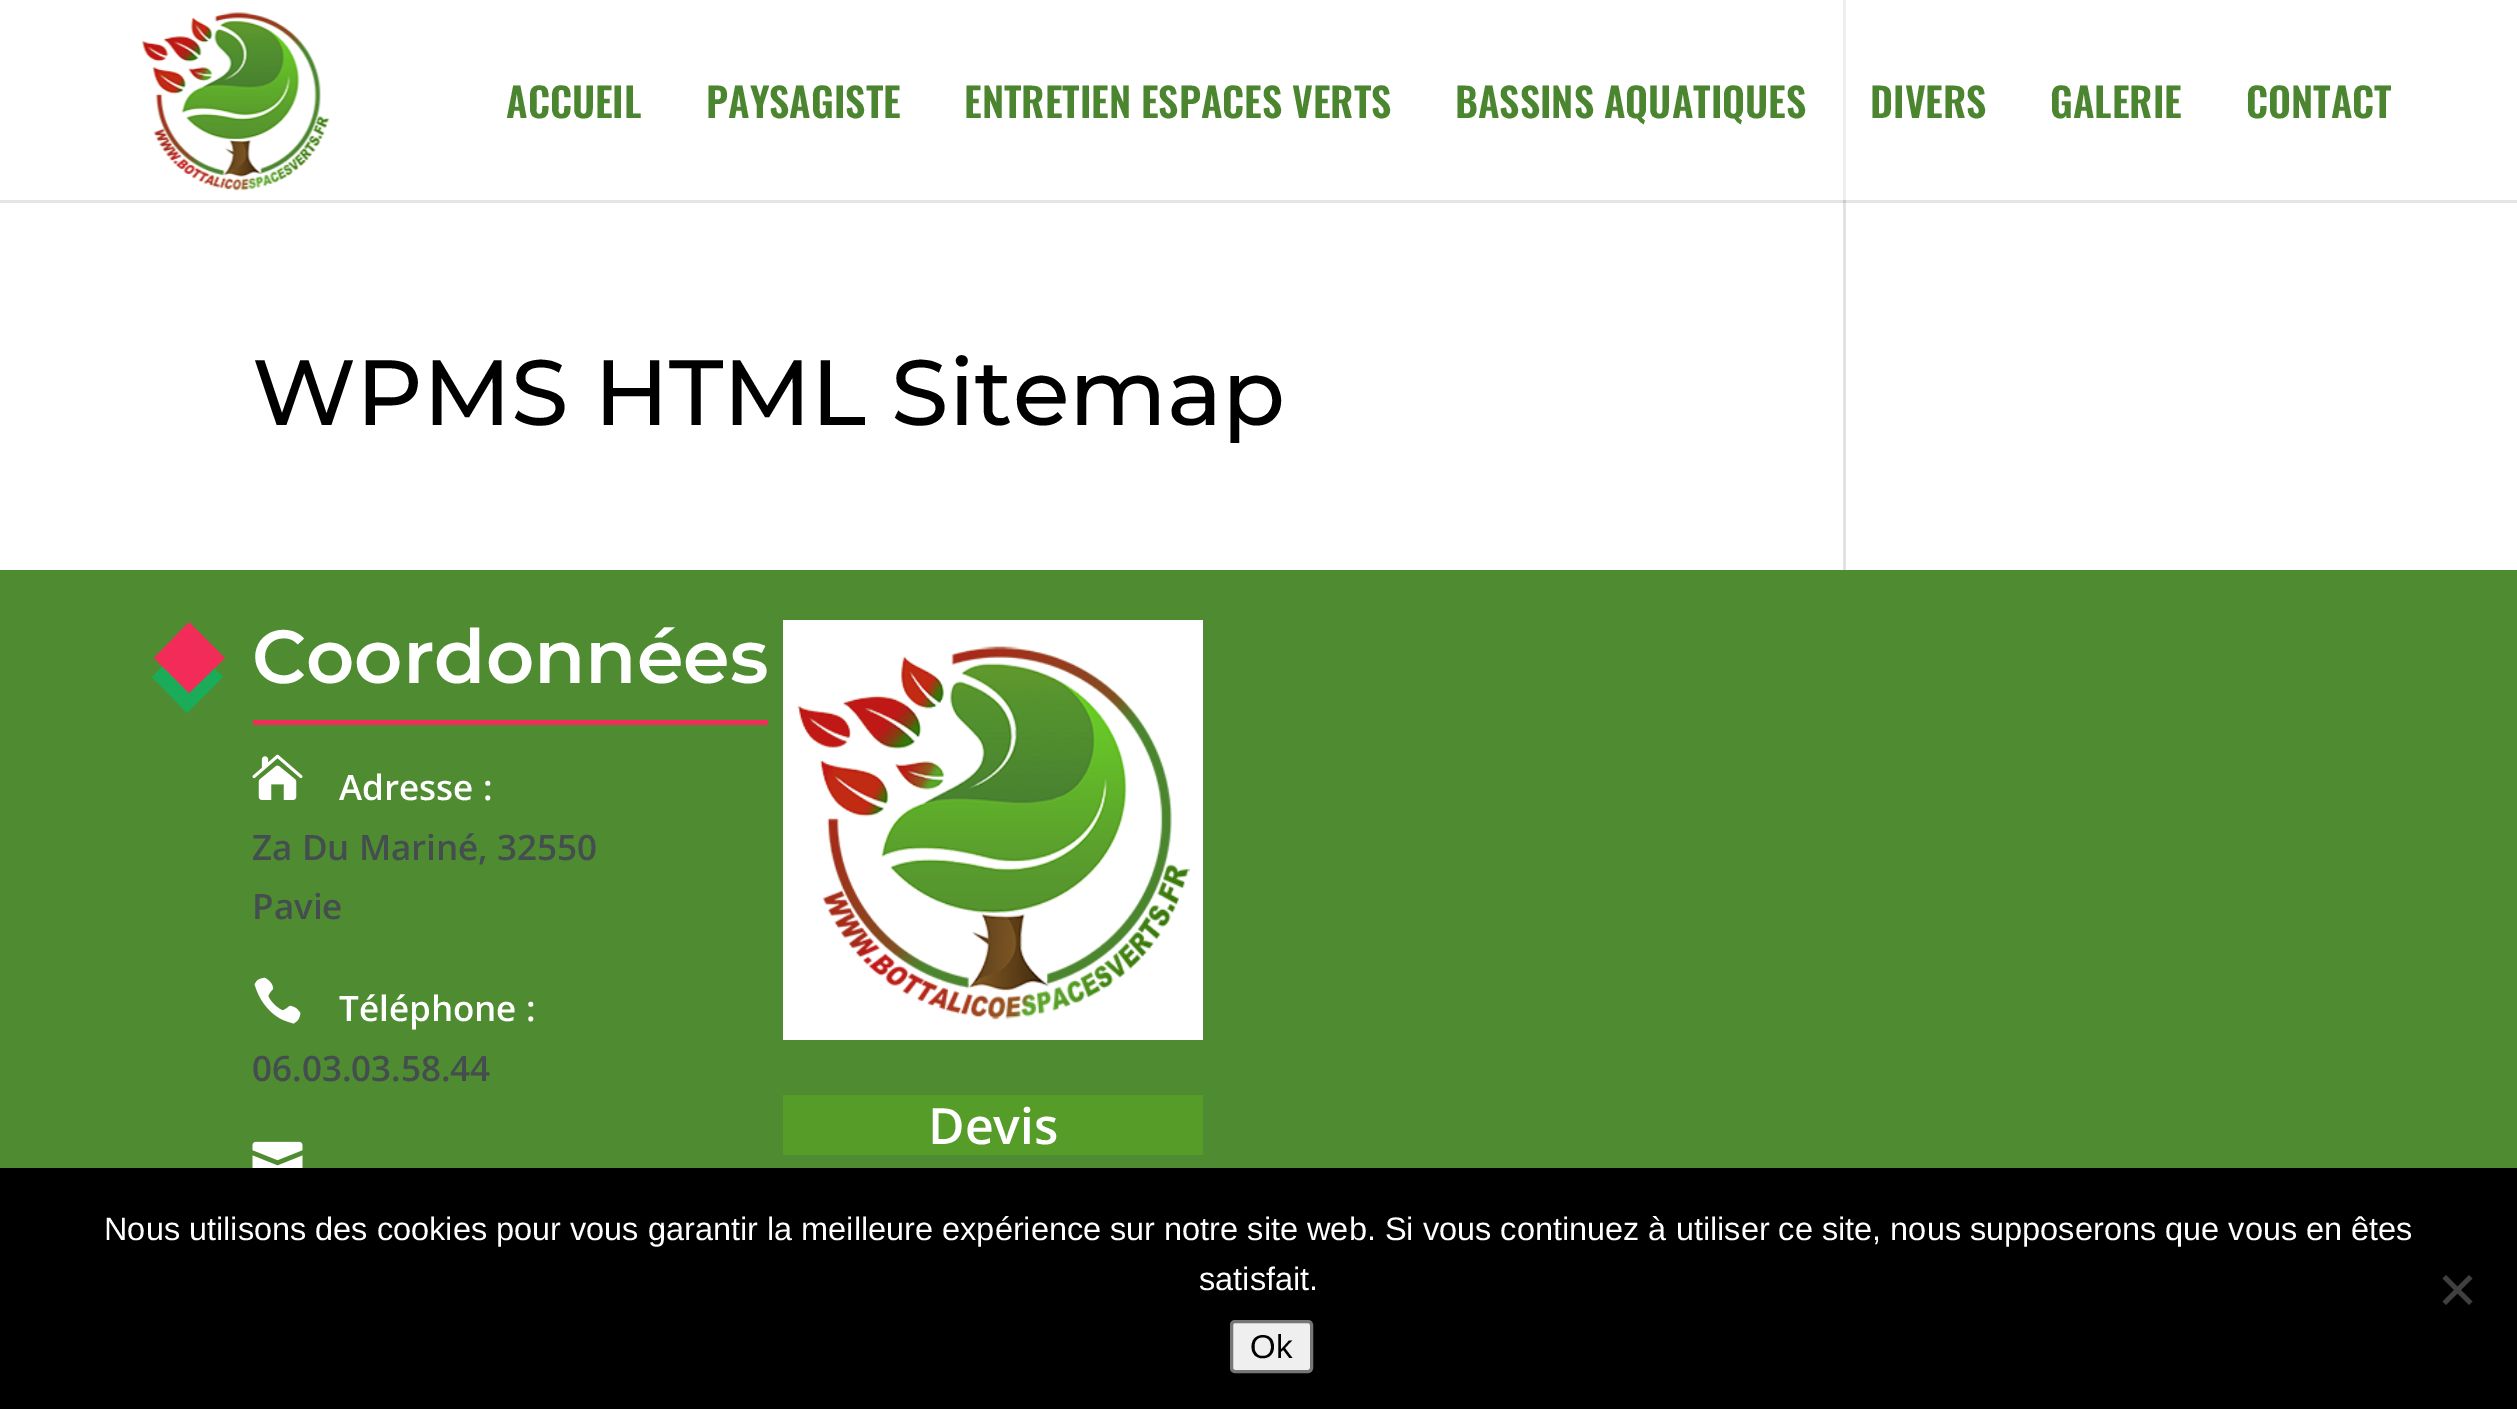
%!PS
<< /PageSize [2517 1409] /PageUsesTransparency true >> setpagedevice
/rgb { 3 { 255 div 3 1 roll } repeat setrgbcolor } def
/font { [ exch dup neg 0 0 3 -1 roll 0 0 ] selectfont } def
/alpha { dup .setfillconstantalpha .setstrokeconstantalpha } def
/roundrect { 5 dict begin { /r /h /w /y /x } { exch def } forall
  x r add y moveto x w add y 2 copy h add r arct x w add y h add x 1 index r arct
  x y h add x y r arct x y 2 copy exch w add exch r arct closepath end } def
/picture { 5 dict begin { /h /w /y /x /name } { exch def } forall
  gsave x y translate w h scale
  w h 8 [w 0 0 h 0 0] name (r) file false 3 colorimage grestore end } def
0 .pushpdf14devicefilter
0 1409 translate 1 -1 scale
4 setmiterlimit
255 255 255 rgb
0 0 2517 1409 rectfill
226 226 226 rgb
1843 200 3 370 rectfill
0.1 alpha
0 0 0 rgb
0 200 moveto 0 203 lineto 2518 203 lineto 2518 3 lineto 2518 200 lineto closepath fill
1 alpha
(img/1.rgb) 141 12 189 179 picture
[
  [1843 0 3 200 238 238 238]
  [0 570 2517 598 79 139 48]
  [253 720 515 5 242 43 89]
] { aload pop rgb rectfill } forall
26 172 89 rgb
163 666 moveto 152 677 lineto 187 713 lineto 223 677 lineto 214 668 lineto 189 693 lineto closepath fill
242 43 89 rgb
189 622 moveto 225 658 lineto 189 693 lineto 154 658 lineto closepath fill
(img/2.rgb) 252 754 51 46 picture
(img/3.rgb) 254 977 47 47 picture
(img/4.rgb) 252 1141 51 27 picture
255 255 255 rgb
783 620 420 420 rectfill
(img/5.rgb) 797 646 394 374 picture
86 156 40 rgb
783 1095 420 60 rectfill
0 0 0 rgb
0 1168 2517 241 rectfill
64 64 64 rgb
2469 1275 moveto 2472.5 1278.5 lineto 2446 1305 lineto 2442.5 1301.5 lineto closepath fill
2442.5 1278.5 moveto 2446 1275 lineto 2472.5 1301.5 lineto 2469 1305 lineto closepath fill
239 239 239 rgb
1231.5 1321.5 80 50 3.5 roundrect gsave fill grestore
118 118 118 rgb
3 setlinewidth
stroke
/Oswald-SemiBold 40 font
75 133 47 rgb
[
  [(ACCUEIL) 506 118]
  [(PAYSAGISTE) 706 118]
  [(ENTRETIEN ESPACES VERTS) 964 118]
  [(BASSINS AQUATIQUES) 1455 118]
  [(DIVERS) 1870 118]
  [(GALERIE) 2050 118]
  [(CONTACT) 2246 118]
] { aload pop moveto show } forall
/Montserrat-Medium 92.5 font
0 0 0 rgb
252 425 moveto (WPMS HTML Sitemap) show
/Montserrat-SemiBold 75 font
255 255 255 rgb
252 683 moveto (Coordonnées) show
/OpenSans-SemiBold 35 font
339 800 moveto (Adresse :) show
68 78 78 rgb
252 860 moveto (Za Du Mariné, 32550) show
252 919 moveto (Pavie) show
255 255 255 rgb
339 1021 moveto (Téléphone :) show
68 78 78 rgb
252 1081 moveto (06.03.03.58.44) show
/OpenSans-SemiBold 50 font
255 255 255 rgb
928 1144 moveto (Devis) show
/LiberationSans-Regular 32.5 font
104 1240 moveto (Nous utilisons des cookies pour vous garantir la meilleure expérience sur notre site web. Si vous continuez à utiliser ce site, nous supposerons que vous en êtes) show
1199 1290 moveto (satisfait.) show
/LiberationSans-Regular 33 font
0 0 0 rgb
1250 1358 moveto (Ok) show
.poppdf14devicefilter showpage
